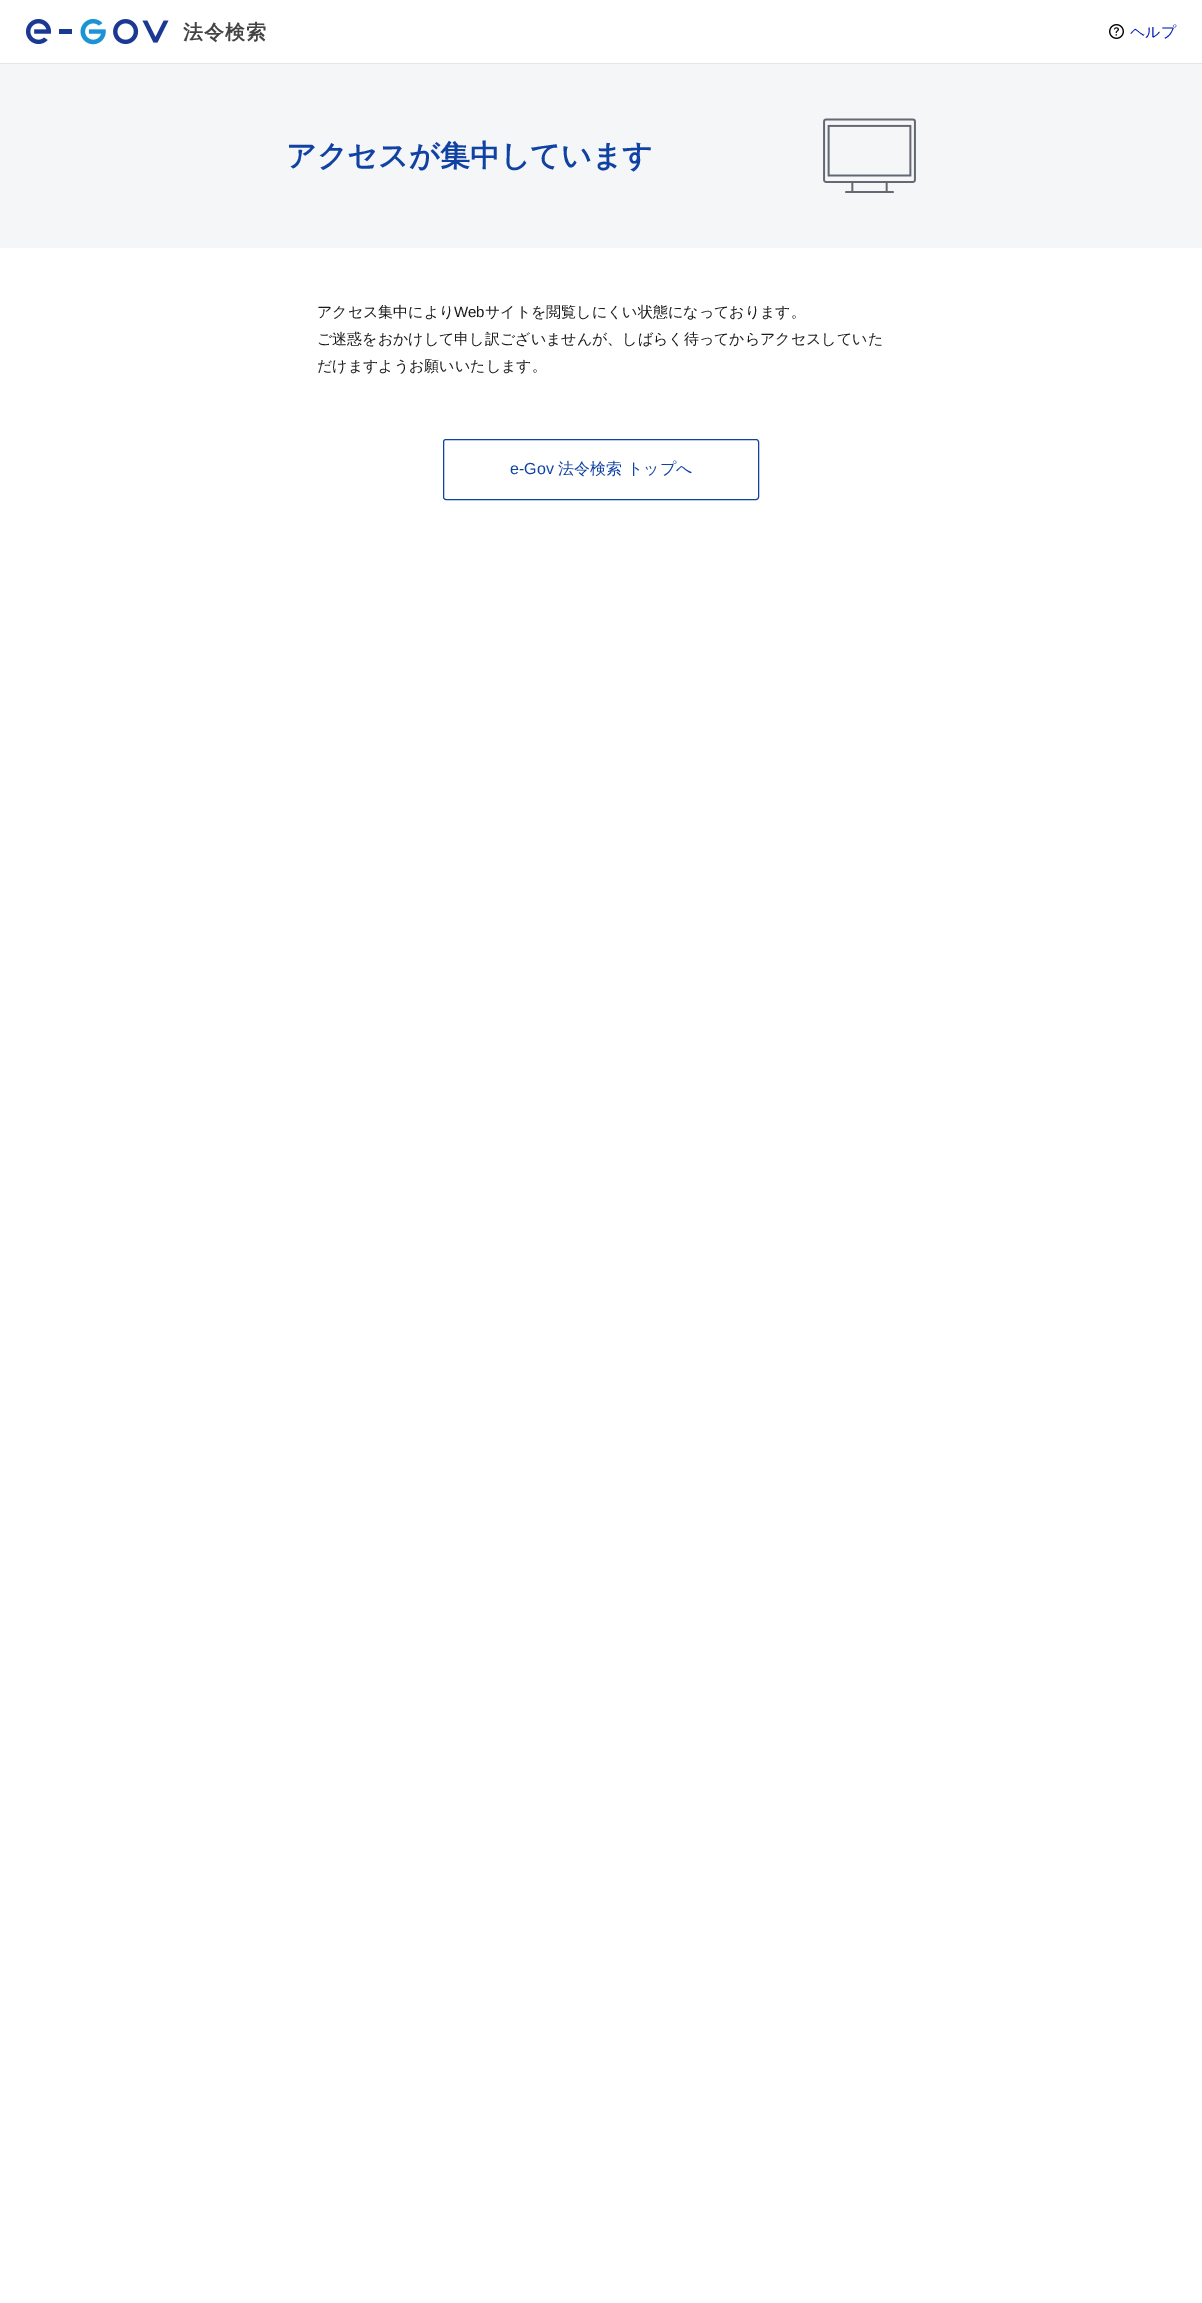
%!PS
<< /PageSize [1202 2303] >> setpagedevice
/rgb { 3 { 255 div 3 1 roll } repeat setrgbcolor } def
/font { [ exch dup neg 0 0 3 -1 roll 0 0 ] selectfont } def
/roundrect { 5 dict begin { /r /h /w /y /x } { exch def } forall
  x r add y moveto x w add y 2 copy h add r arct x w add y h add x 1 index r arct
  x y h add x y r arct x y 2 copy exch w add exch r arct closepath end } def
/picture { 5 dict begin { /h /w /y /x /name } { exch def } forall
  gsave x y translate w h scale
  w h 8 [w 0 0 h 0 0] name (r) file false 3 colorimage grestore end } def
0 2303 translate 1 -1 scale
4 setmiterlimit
255 255 255 rgb
0 0 1202 2303 rectfill
230 230 230 rgb
0 63 1202 1 rectfill
(img/1.rgb) 26 19 143 26 picture
(img/2.rgb) 1109 24 15 15 picture
245 246 248 rgb
0 64 1202 184 rectfill
(img/3.rgb) 823 118 93 75 picture
16 66 164 rgb
443.5 439.5 315 60 2.5 roundrect stroke
/WenQuanYiZenHei-Bold 20 font
68 68 68 rgb
183 39 moveto 1 0 (法令検索) ashow
/WenQuanYiZenHei-Medium 15 font
0 23 193 rgb
1130 37 moveto (ヘルプ) show
/WenQuanYiZenHei-Bold 30 font
16 66 164 rgb
286 166 moveto (アクセスが集中しています) show
/WenQuanYiZenHei-Medium 15 font
26 26 28 rgb
317 317 moveto (アクセス集中により) show
/LiberationSans-Regular 15 font
454 317 moveto (Web) show
/WenQuanYiZenHei-Medium 15 font
[
  [(サイトを閲覧しにくい状態になっております。) 485 317]
  [(ご迷惑をおかけして申し訳ございませんが、しばらく待ってからアクセスしていた) 317 344]
  [(だけますようお願いいたします。) 317 371]
] { aload pop moveto show } forall
/LiberationSans-Regular 16 font
16 66 164 rgb
510 474 moveto (e-Gov) show
/WenQuanYiZenHei-Medium 16 font
558 474 moveto (法令検索 トップへ) show
showpage
